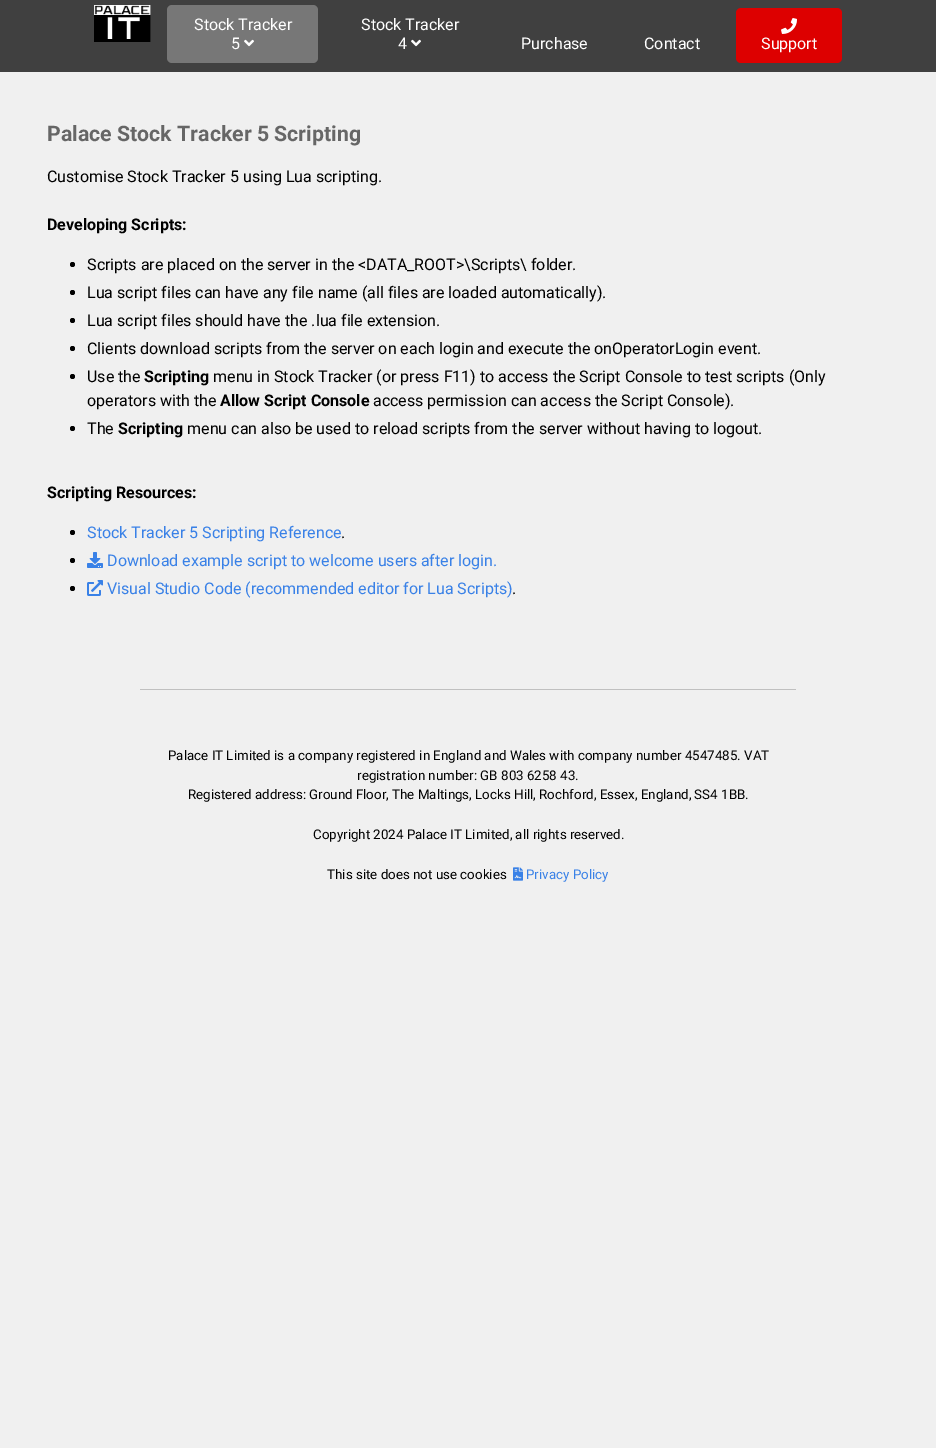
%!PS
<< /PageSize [936 1448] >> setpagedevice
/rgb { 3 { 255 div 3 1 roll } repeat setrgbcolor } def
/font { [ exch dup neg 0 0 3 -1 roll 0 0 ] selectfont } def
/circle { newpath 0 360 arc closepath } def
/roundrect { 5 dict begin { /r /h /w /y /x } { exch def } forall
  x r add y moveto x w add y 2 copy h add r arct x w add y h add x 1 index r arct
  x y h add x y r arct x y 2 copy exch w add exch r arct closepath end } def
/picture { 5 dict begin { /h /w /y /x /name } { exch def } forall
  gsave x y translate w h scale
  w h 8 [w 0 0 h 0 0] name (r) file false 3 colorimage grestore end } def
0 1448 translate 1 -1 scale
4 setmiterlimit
240 240 240 rgb
0 0 936 1448 rectfill
64 64 64 rgb
0 0 936 72 rectfill
(img/1.rgb) 94 5 57 37 picture
119 119 119 rgb
167 5 151 58 5 roundrect fill
(img/2.rgb) 244 39 10 8 picture
(img/3.rgb) 411 39 10 8 picture
221 0 0 rgb
736 8 106 55 5 roundrect fill
(img/4.rgb) 781 18 16 16 picture
0 0 0 rgb
72.5 264.5 2.5 circle fill
72.5 292.5 2.5 circle fill
72.5 320.5 2.5 circle fill
72.5 348.5 2.5 circle fill
72.5 376.5 2.5 circle fill
72.5 428.5 2.5 circle fill
72.5 532.5 2.5 circle fill
72.5 560.5 2.5 circle fill
(img/5.rgb) 87 552 16 16 picture
72.5 588.5 2.5 circle fill
(img/6.rgb) 87 580 16 16 picture
192 192 192 rgb
140 689 656 1 rectfill
(img/7.rgb) 513 867 10 14 picture
/Roboto-Regular 16 font
255 255 255 rgb
[
  [(Stock Tracker) 194 30]
  [(5) 231 49]
  [(Stock Tracker) 361 30]
  [(4) 398 49]
  [(Purchase) 521 49]
  [(Contact) 644 49]
  [(Support) 761 49]
] { aload pop moveto show } forall
/Roboto-Bold 21.3 font
102 102 102 rgb
47 141 moveto (Palace Stock Tracker 5 Scripting) show
/Roboto-Regular 16 font
0 0 0 rgb
47 182 moveto (Customise Stock Tracker 5 using Lua scripting.) show
/Roboto-Bold 16 font
47 230 moveto (Developing Scripts:) show
/Roboto-Regular 16 font
[
  [(Scripts are placed on the server in the <DATA_ROOT>\\Scripts\\ folder.) 87 270]
  [(Lua script files can have any file name \(all files are loaded automatically\).) 87 298]
  [(Lua script files should have the .lua file extension.) 87 326]
  [(Clients download scripts from the server on each login and execute the onOperatorLogin event.) 87 354]
  [(Use the) 87 382]
] { aload pop moveto show } forall
/Roboto-Bold 16 font
144 382 moveto (Scripting) show
/Roboto-Regular 16 font
213 382 moveto (menu in Stock Tracker \(or press F11\) to access the Script Console to test scripts \(Only) show
87 406 moveto (operators with the) show
/Roboto-Bold 16 font
220 406 moveto (Allow Script Console) show
/Roboto-Regular 16 font
373 406 moveto (access permission can access the Script Console\).) show
87 434 moveto (The) show
/Roboto-Bold 16 font
118 434 moveto (Scripting) show
/Roboto-Regular 16 font
187 434 moveto (menu can also be used to reload scripts from the server without having to logout.) show
/Roboto-Bold 16 font
47 498 moveto (Scripting Resources:) show
/Roboto-Regular 16 font
57 129 231 rgb
87 538 moveto (Stock Tracker 5 Scripting Reference) show
0 0 0 rgb
341 538 moveto (.) show
57 129 231 rgb
107 566 moveto (Download example script to welcome users after login.) show
107 594 moveto (Visual Studio Code \(recommended editor for Lua Scripts\)) show
0 0 0 rgb
512 594 moveto (.) show
/Roboto-Regular 13.35 font
[
  [(Palace IT Limited is a company registered in England and Wales with company number 4547485. VAT) 168 760]
  [(registration number: GB 803 6258 43.) 357 780]
  [(Registered address: Ground Floor, The Maltings, Locks Hill, Rochford, Essex, England, SS4 1BB.) 188 799]
  [(Copyright 2024 Palace IT Limited, all rights reserved.) 313 839]
  [(This site does not use cookies) 327 879]
] { aload pop moveto show } forall
57 129 231 rgb
526 879 moveto (Privacy Policy) show
showpage
